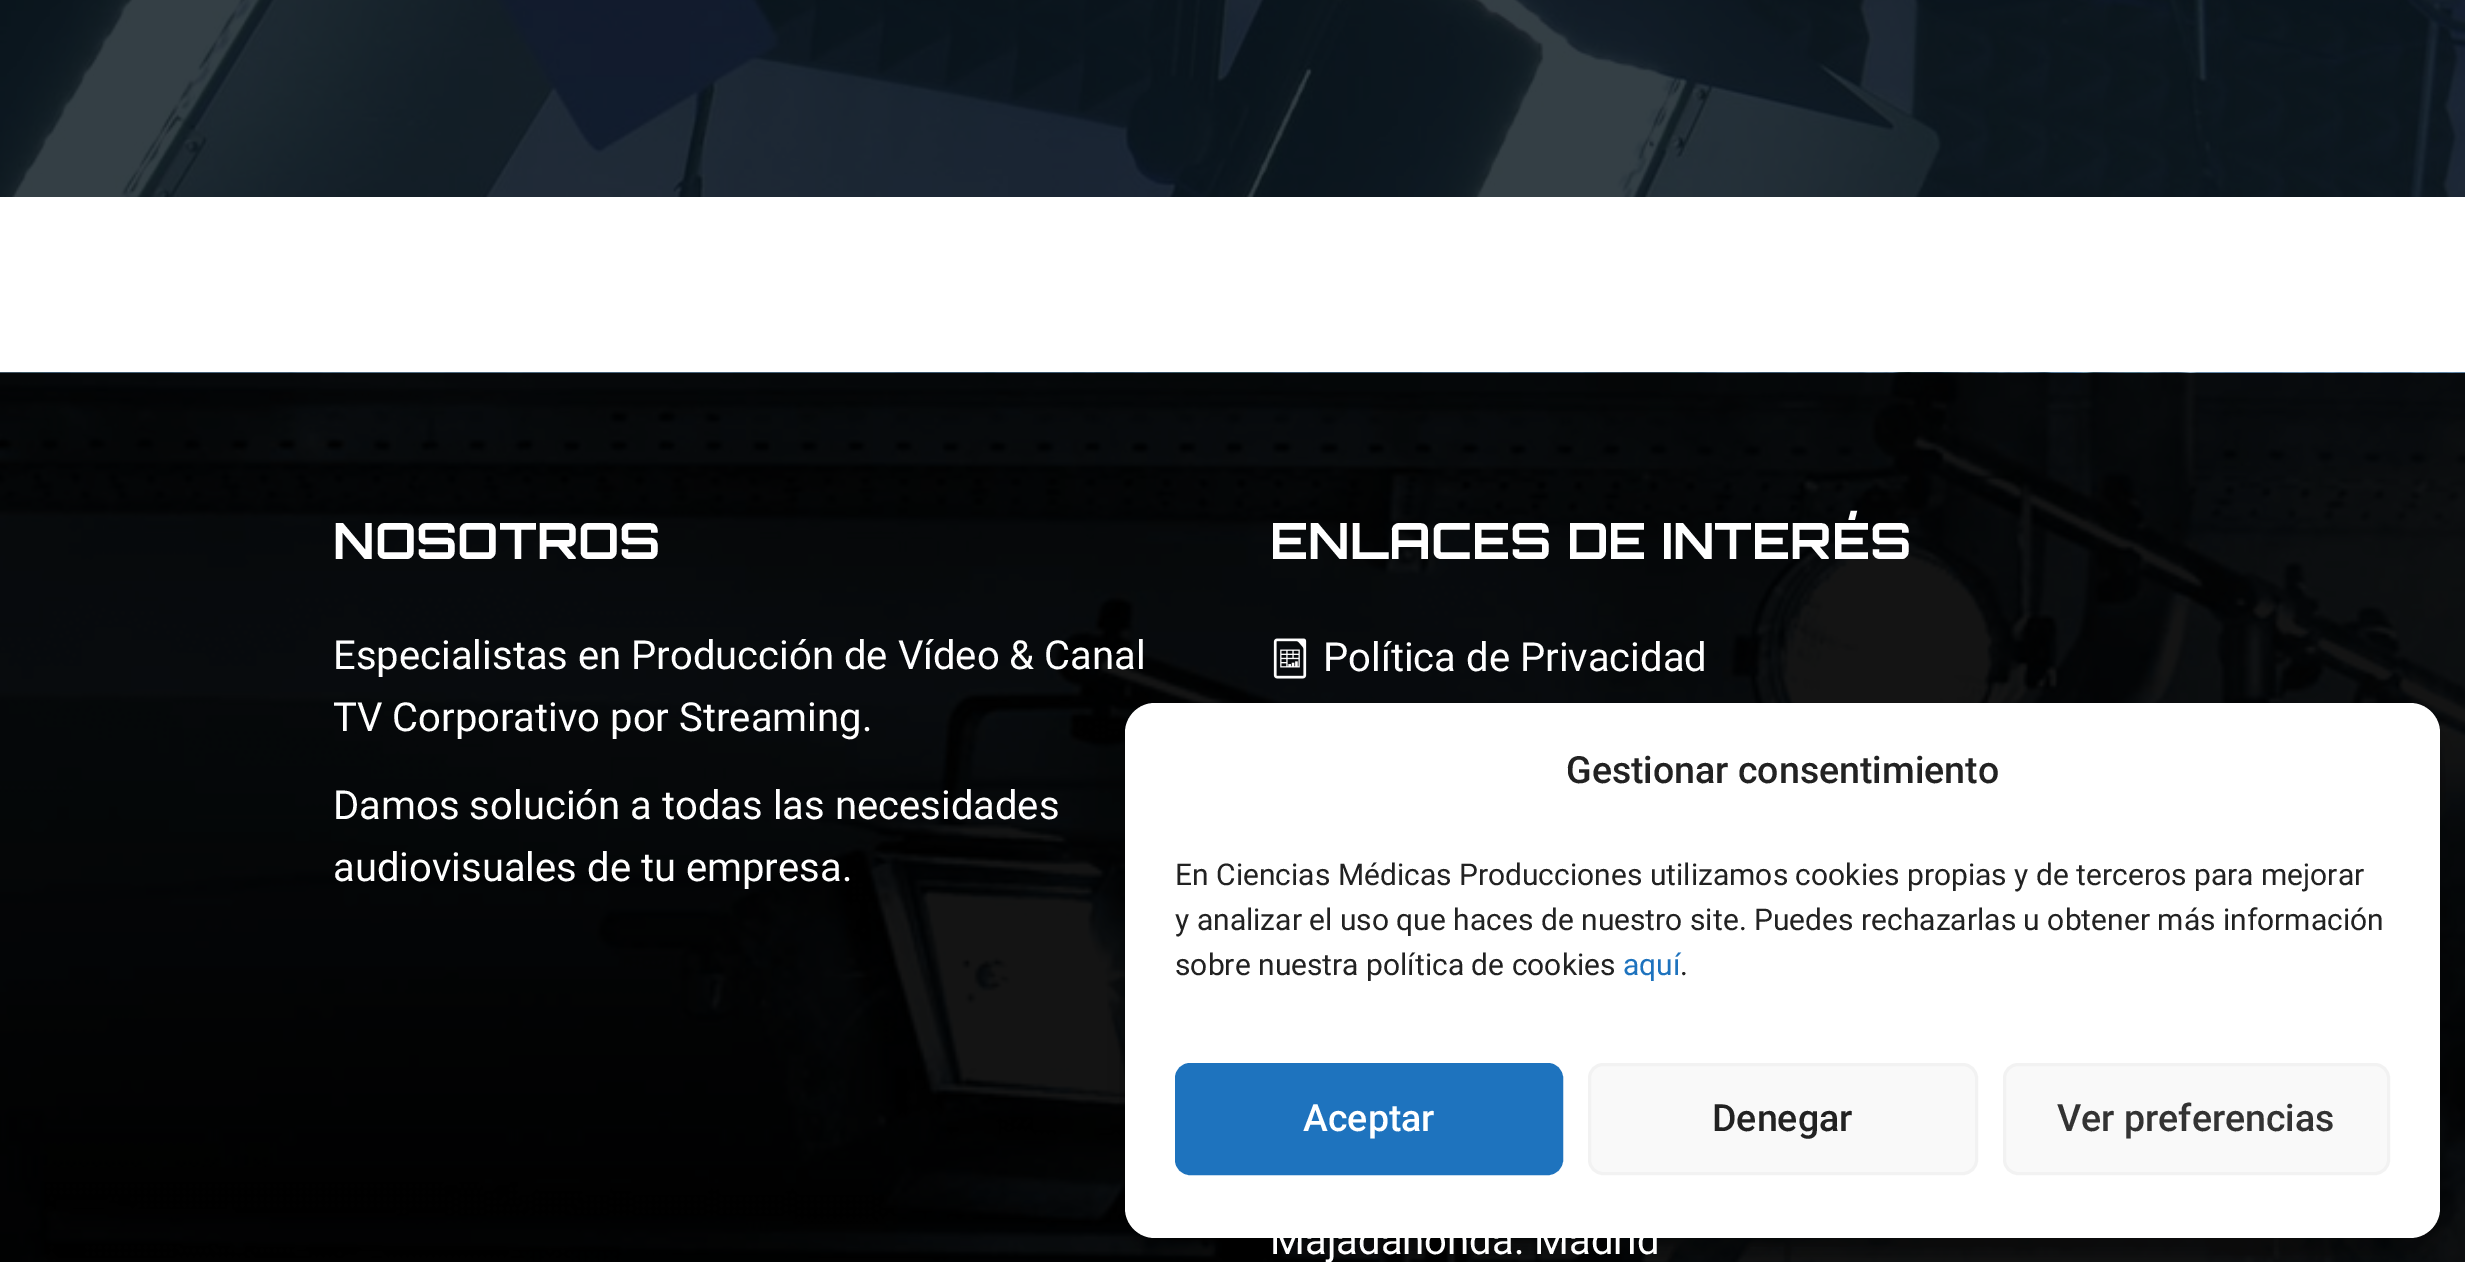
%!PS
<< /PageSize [2465 1262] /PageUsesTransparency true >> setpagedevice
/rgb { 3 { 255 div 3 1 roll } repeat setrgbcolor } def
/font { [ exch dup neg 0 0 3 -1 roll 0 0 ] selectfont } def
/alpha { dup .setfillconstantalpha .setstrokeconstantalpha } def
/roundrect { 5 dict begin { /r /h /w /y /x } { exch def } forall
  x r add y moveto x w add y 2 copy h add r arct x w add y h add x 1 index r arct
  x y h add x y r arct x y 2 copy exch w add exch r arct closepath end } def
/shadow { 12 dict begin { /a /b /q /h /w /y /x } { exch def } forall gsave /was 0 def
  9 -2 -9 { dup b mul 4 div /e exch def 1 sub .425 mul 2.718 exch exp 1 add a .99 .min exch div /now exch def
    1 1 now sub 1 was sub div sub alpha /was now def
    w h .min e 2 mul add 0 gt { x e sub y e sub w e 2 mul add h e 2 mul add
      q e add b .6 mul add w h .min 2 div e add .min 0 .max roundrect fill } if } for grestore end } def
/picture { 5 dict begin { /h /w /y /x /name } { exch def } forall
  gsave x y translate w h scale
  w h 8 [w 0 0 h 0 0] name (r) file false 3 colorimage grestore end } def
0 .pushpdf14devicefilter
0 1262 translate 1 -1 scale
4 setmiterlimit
255 255 255 rgb
0 0 2465 1262 rectfill
(img/1.rgb) 0 0 2465 197 picture
(img/2.rgb) 0 372 2465 890 picture
(img/3.rgb) 1273 638 34 41 picture
0 0 0 rgb
1125 718 1315 535 30 7.5 0.23 shadow
1125 728 1315 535 30 25 0.19 shadow
255 255 255 rgb
1125 703 1315 535 30 roundrect fill
30 115 190 rgb
1176.5 1064.5 385 109 13.5 roundrect gsave fill grestore
3 setlinewidth
stroke
249 249 249 rgb
1589.5 1064.5 387 109 13.5 roundrect gsave fill grestore
242 242 242 rgb
stroke
249 249 249 rgb
2004.5 1064.5 384 109 13.5 roundrect gsave fill grestore
242 242 242 rgb
stroke
/Orbitron-Bold 50 font
255 255 255 rgb
333 559 moveto (NOSOTROS) show
/Roboto-Regular 40 font
[
  [(Especialistas en Producción de Vídeo & Canal) 333 669]
  [(TV Corporativo por Streaming.) 333 731]
  [(Damos solución a todas las necesidades) 333 819]
  [(audiovisuales de tu empresa.) 333 881]
] { aload pop moveto show } forall
/Orbitron-Bold 50 font
1270 559 moveto (ENLACES DE INTERÉS) show
/Roboto-Regular 40 font
1323 671 moveto (Política de Privacidad) show
1270 1254 moveto (Majadahonda. Madrid) show
/Roboto-Medium 37.5 font
34 34 34 rgb
1566 783 moveto (Gestionar consentimiento) show
/Roboto-Regular 30 font
[
  [(En Ciencias Médicas Producciones utilizamos cookies propias y de terceros para mejorar) 1175 885]
  [(y analizar el uso que haces de nuestro site. Puedes rechazarlas u obtener más información) 1175 930]
  [(sobre nuestra política de cookies) 1175 975]
] { aload pop moveto show } forall
30 115 190 rgb
1623 975 moveto (aquí) show
34 34 34 rgb
1680 975 moveto (.) show
/Roboto-Medium 37.5 font
255 255 255 rgb
1303 1131 moveto (Aceptar) show
34 34 34 rgb
1712 1131 moveto (Denegar) show
51 51 51 rgb
2057 1131 moveto (Ver preferencias) show
.poppdf14devicefilter showpage
